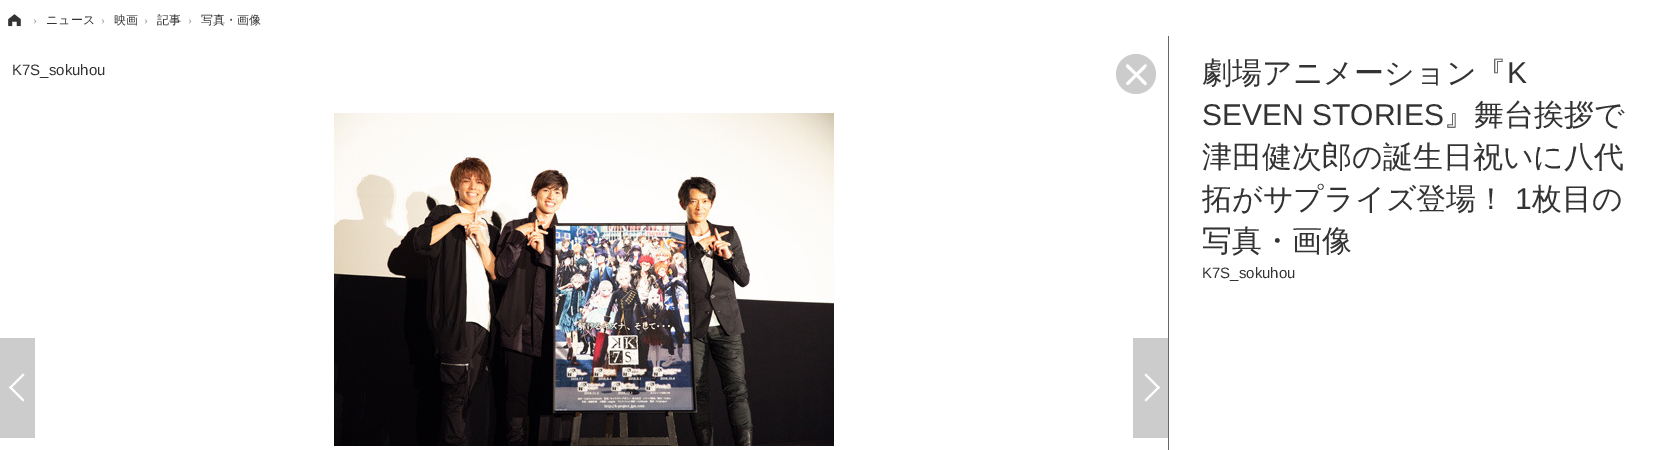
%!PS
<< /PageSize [1670 450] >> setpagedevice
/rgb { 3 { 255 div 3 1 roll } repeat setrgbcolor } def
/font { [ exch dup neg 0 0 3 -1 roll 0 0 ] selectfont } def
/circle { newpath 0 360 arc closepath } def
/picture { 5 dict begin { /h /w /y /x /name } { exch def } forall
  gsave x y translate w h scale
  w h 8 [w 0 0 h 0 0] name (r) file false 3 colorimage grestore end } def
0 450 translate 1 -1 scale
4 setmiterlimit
255 255 255 rgb
0 0 1670 450 rectfill
(img/1.rgb) 8 14 13 13 picture
102 102 102 rgb
1168 36 1 414 rectfill
204 204 204 rgb
1136 74 20 circle fill
255 255 255 rgb
1126.5 82.5 moveto 1144.5 64.5 lineto 1145.5 64.5 lineto 1148.5 65 1145 68 1143.5 70 curveto 1131.5 81.5 lineto 1131 82 1128 86.5 1126.5 84.5 curveto 1126 84 1126 83 1126.5 82.5 curveto closepath fill
1128.5 65 moveto 1146.5 82.5 lineto 1146.5 84 lineto 1146 87 1143 83.5 1141 81.5 curveto 1129.5 70 lineto 1129 69.5 1124.5 66.5 1126.5 65 curveto 1127 64 1128 64 1128.5 65 curveto closepath fill
(img/2.rgb) 334 113 500 333 picture
204 204 204 rgb
0 338 35 100 rectfill
255 255 255 rgb
23 401.5 moveto 9 387.5 lineto 10.5 386 lineto 24.5 400 lineto closepath fill
10.5 389 moveto 9 387.5 lineto 23 373.5 lineto 24.5 375 lineto closepath fill
204 204 204 rgb
1133 338 35 100 rectfill
255 255 255 rgb
1146 373.5 moveto 1160 387.5 lineto 1158.5 389 lineto 1144.5 375 lineto closepath fill
1158.5 386 moveto 1160 387.5 lineto 1146 401.5 lineto 1144.5 400 lineto closepath fill
/LiberationSerif-Regular 12 font
153 153 153 rgb
33 24 moveto (›) show
/WenQuanYiZenHei-Medium 12 font
51 51 51 rgb
46 24 moveto (ニュース) show
/LiberationSerif-Regular 12 font
153 153 153 rgb
101 24 moveto (›) show
/WenQuanYiZenHei-Medium 12 font
51 51 51 rgb
114 24 moveto (映画) show
/LiberationSerif-Regular 12 font
153 153 153 rgb
144 24 moveto (›) show
/WenQuanYiZenHei-Medium 12 font
51 51 51 rgb
157 24 moveto (記事) show
/LiberationSerif-Regular 12 font
153 153 153 rgb
188 24 moveto (›) show
/WenQuanYiZenHei-Medium 12 font
51 51 51 rgb
201 24 moveto (写真・画像) show
/LiberationSans-Regular 15 font
12 75 moveto (K7S_sokuhou) show
/WenQuanYiZenHei-Medium 30 font
1202 83 moveto (劇場アニメーション『) show
/LiberationSans-Regular 30 font
1507 83 moveto (K) show
1202 125 moveto (SEVEN STORIES) show
/WenQuanYiZenHei-Medium 30 font
[
  [(』舞台挨拶で) 1444 125]
  [(津田健次郎の誕生日祝いに八代) 1202 167]
  [(拓がサプライズ登場！) 1202 209]
] { aload pop moveto show } forall
/LiberationSans-Regular 30 font
1515 209 moveto (1) show
/WenQuanYiZenHei-Medium 30 font
1532 209 moveto (枚目の) show
1202 251 moveto (写真・画像) show
/LiberationSans-Regular 15 font
1202 278 moveto (K7S_sokuhou) show
showpage
